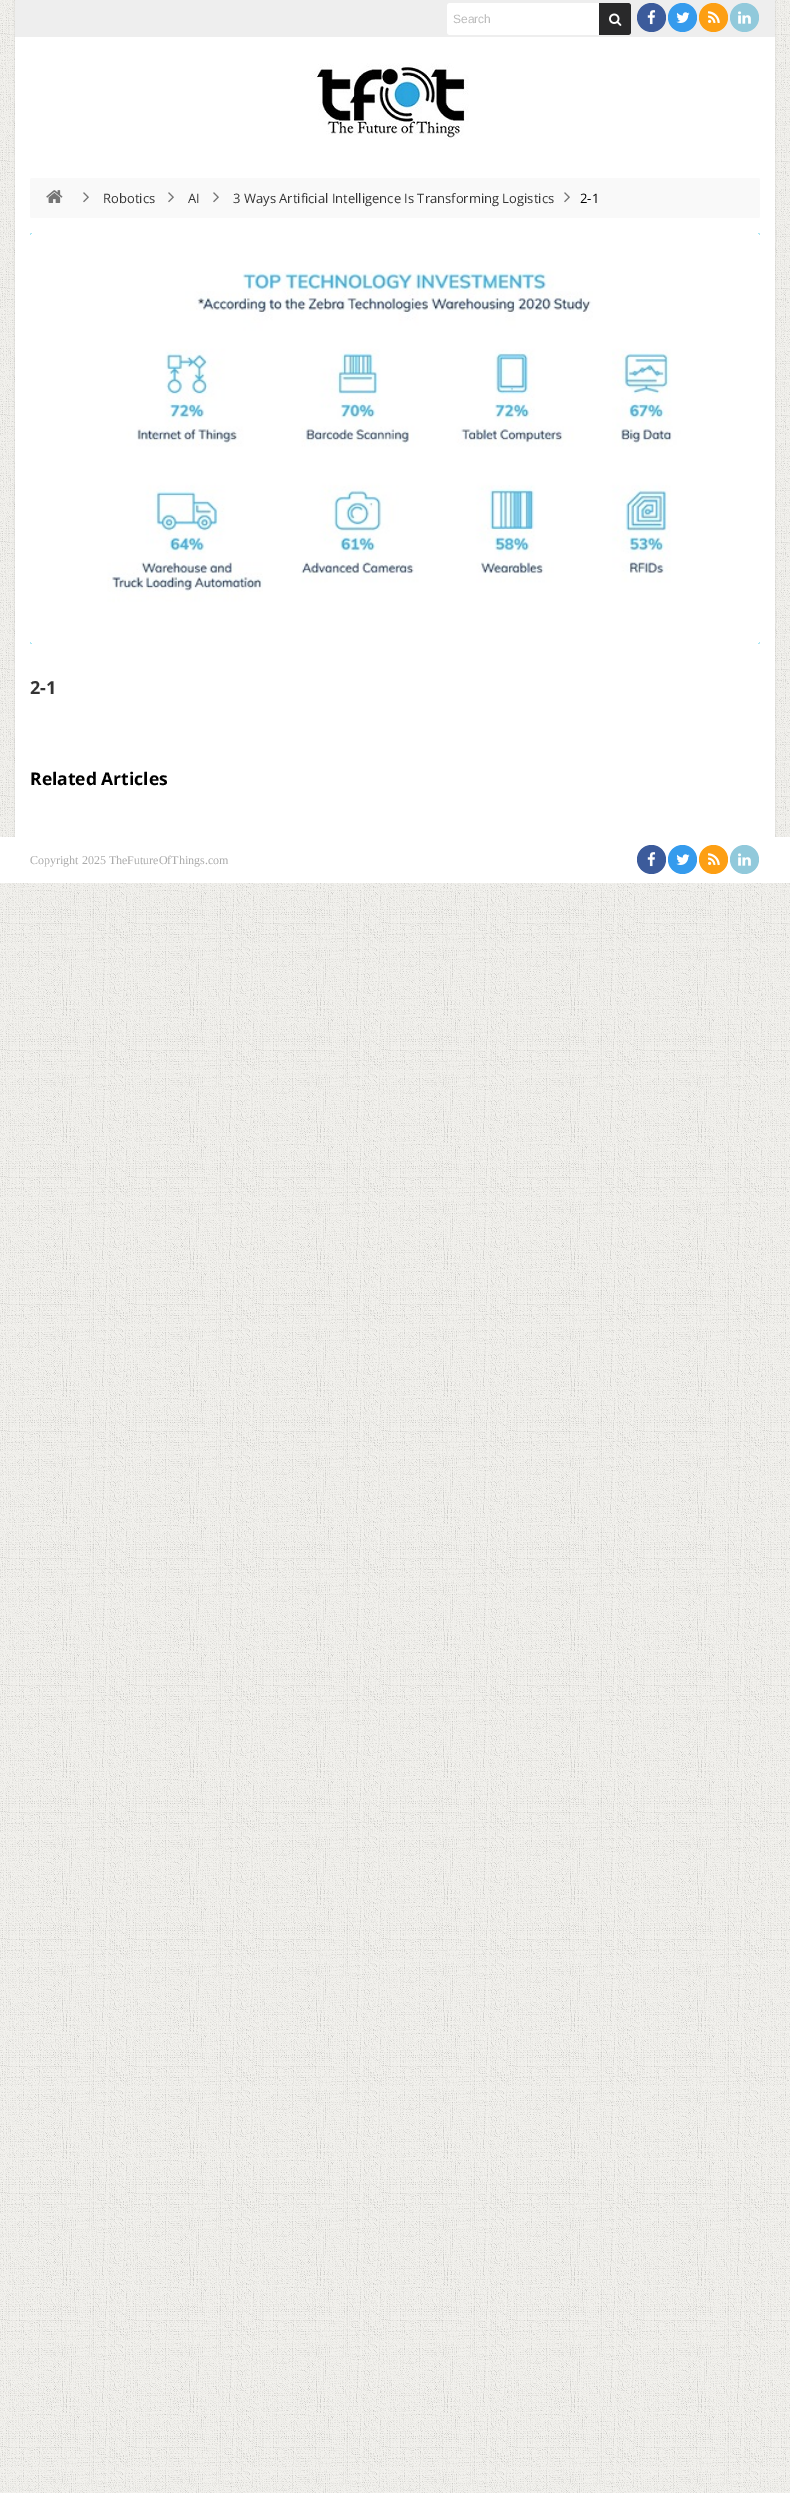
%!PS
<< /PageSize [790 2493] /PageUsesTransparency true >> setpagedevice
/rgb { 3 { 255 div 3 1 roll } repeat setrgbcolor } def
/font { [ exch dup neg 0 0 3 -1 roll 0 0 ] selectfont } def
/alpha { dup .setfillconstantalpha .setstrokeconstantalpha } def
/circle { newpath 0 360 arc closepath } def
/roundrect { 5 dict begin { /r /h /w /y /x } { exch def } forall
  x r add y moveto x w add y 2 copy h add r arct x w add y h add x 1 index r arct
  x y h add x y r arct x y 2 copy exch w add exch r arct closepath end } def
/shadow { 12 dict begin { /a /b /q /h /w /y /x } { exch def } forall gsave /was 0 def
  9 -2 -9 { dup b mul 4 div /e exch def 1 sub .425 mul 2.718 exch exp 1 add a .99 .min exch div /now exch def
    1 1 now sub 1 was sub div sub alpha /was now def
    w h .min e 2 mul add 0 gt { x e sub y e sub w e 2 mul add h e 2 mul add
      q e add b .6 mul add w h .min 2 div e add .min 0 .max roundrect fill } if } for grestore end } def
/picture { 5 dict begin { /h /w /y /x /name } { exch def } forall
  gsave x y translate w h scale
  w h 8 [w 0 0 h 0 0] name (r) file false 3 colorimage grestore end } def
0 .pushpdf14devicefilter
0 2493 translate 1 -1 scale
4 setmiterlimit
255 255 255 rgb
0 0 790 2493 rectfill
(img/1.rgb) 0 0 790 2493 picture
0 0 0 rgb
15 1 760 837 0 1 0.15 shadow
255 255 255 rgb
15 37 760 800 rectfill
238 238 238 rgb
15 0 760 37 rectfill
255 255 255 rgb
450 3 moveto 599 3 lineto 599 35 lineto 450 35 lineto 448.5 35 447 33.5 447 32 curveto 447 6 lineto 447 4.5 448.5 3 450 3 curveto closepath fill
41 41 42 rgb
599 3 moveto 628 3 lineto 629.5 3 631 4.5 631 6 curveto 631 32 lineto 631 33.5 629.5 35 628 35 curveto 599 35 lineto closepath fill
(img/2.rgb) 609 13 13 13 picture
60 91 155 rgb
651.5 17.5 14.5 circle fill
(img/3.rgb) 647 10 9 15 picture
53 155 237 rgb
682.5 17.5 14.5 circle fill
(img/4.rgb) 676 12 14 11 picture
253 159 19 rgb
713.5 17.5 14.5 circle fill
(img/5.rgb) 708 11 12 12 picture
145 201 219 rgb
744.5 17.5 14.5 circle fill
(img/6.rgb) 738 11 13 13 picture
(img/7.rgb) 311 63 158 77 picture
249 249 249 rgb
30 178 730 40 2 roundrect fill
(img/8.rgb) 46 190 17 13 picture
(img/9.rgb) 83 192 6 11 picture
(img/9.rgb) 168 192 6 11 picture
(img/9.rgb) 213 192 6 11 picture
(img/9.rgb) 564 192 6 11 picture
0 180 220 rgb
30 233 730 411 2 roundrect fill
(img/10.rgb) 30 233 730 411 picture
255 255 255 rgb
0 837 790 46 rectfill
60 91 155 rgb
651.5 859.5 14.5 circle fill
(img/3.rgb) 647 852 9 15 picture
53 155 237 rgb
682.5 859.5 14.5 circle fill
(img/4.rgb) 676 854 14 11 picture
253 159 19 rgb
713.5 859.5 14.5 circle fill
(img/5.rgb) 708 853 12 12 picture
145 201 219 rgb
744.5 859.5 14.5 circle fill
(img/6.rgb) 738 853 13 13 picture
/LiberationSans-Regular 12 font
187 187 187 rgb
453 23 moveto (Search) show
/OpenSans-Regular 13 font
52 52 52 rgb
[
  [(Robotics) 103 203]
  [(AI) 188 203]
  [(3 Ways Artificial Intelligence Is Transforming Logistics) 233 203]
] { aload pop moveto show } forall
0 0 0 rgb
580 203 moveto (2-1) show
/OpenSans-Bold 18 font
52 52 52 rgb
30 694 moveto (2-1) show
/OpenSans-Bold 17.5 font
0 0 0 rgb
30 785 moveto (Related Articles) show
/LiberationSerif-Regular 12 font
170 170 170 rgb
30 864 moveto (Copyright 2025 TheFutureOfThings.com) show
.poppdf14devicefilter showpage
